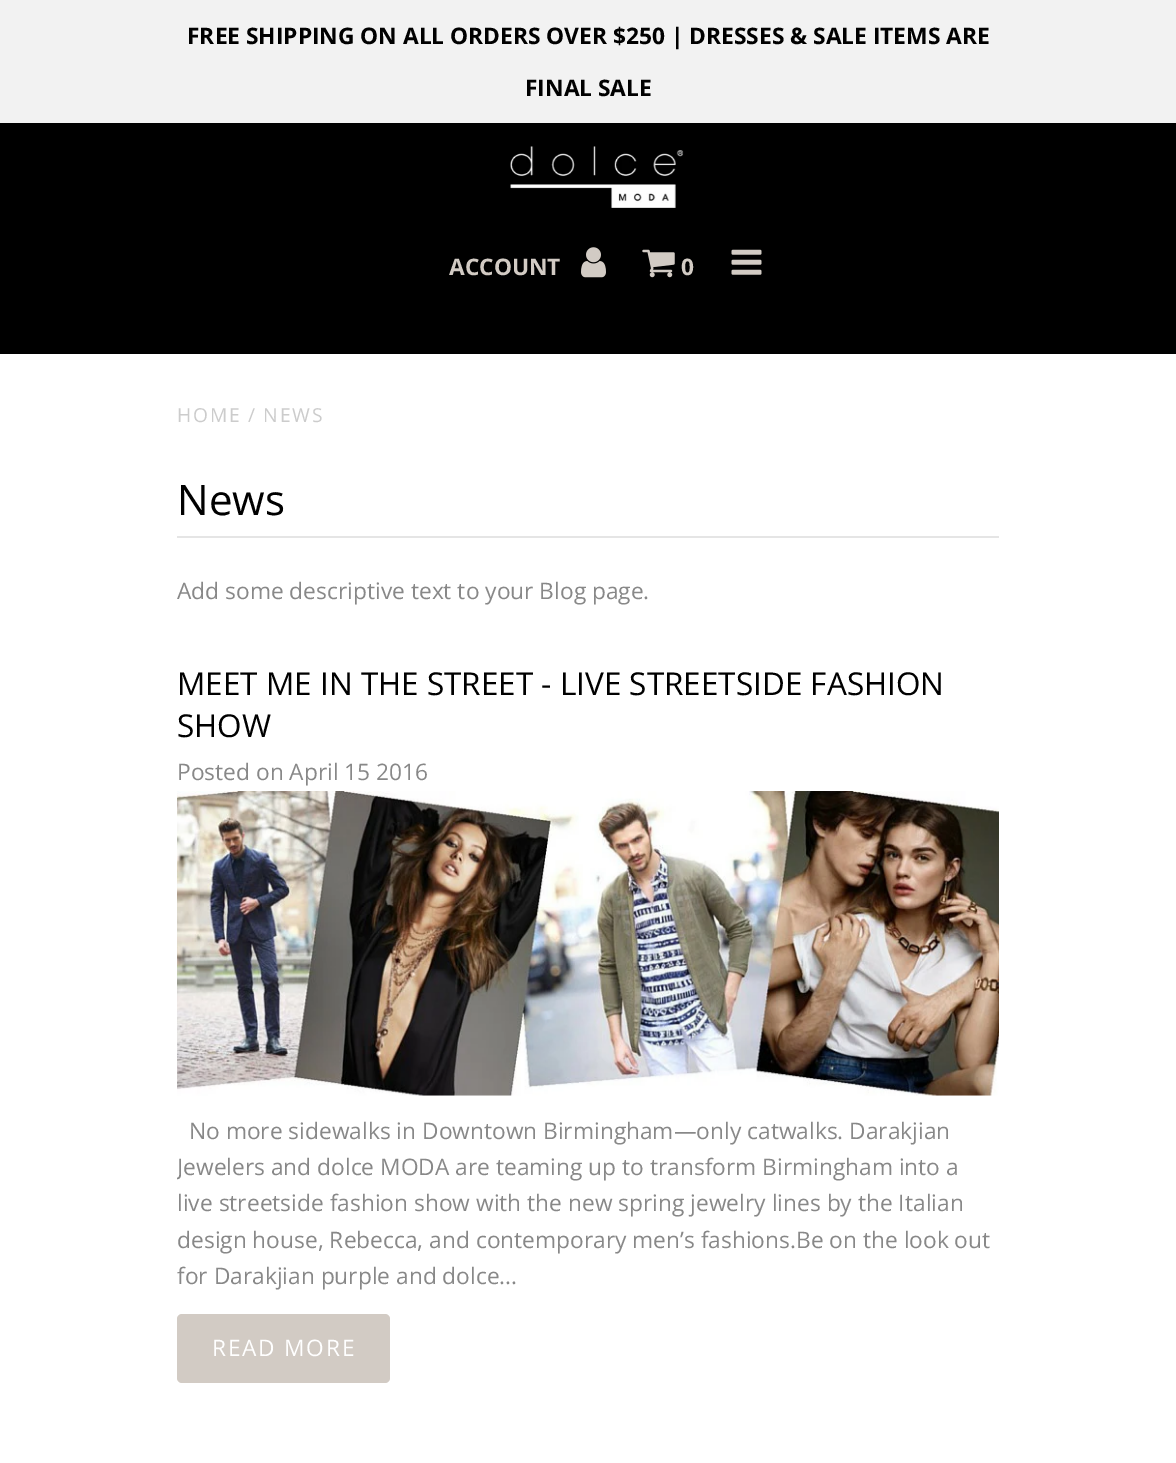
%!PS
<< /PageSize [1176 1463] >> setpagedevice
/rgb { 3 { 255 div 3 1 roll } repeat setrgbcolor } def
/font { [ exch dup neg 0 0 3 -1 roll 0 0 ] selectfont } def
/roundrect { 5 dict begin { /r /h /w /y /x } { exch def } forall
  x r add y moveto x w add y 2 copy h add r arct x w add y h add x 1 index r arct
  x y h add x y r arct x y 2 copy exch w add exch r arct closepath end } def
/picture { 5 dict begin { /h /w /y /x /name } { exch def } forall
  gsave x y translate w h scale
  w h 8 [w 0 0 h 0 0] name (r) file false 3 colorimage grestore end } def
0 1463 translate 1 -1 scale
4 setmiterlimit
255 255 255 rgb
0 0 1176 1463 rectfill
242 242 242 rgb
0 0 1176 123 rectfill
0 0 0 rgb
0 123 1176 231 rectfill
(img/1.rgb) 510 146 174 62 picture
(img/2.rgb) 581 247 25 31 picture
(img/3.rgb) 642 249 33 29 picture
(img/4.rgb) 731 249 31 26 picture
229 229 229 rgb
177 536 822 2 rectfill
(img/5.rgb) 177 791 822 305 picture
210 203 196 rgb
177 1314 213 69 5 roundrect fill
/OpenSans-Bold 22.75 font
0 0 0 rgb
187 44 moveto (FREE SHIPPING ON ALL ORDERS OVER $250 | DRESSES & SALE ITEMS ARE) show
525 96 moveto (FINAL SALE) show
210 203 196 rgb
449 275 moveto (ACCOUNT) show
681 275 moveto (0) show
/OpenSans-Regular 19.25 font
204 204 204 rgb
177 422 moveto 1.75 0 (HOME / NEWS) ashow
/OpenSans-Regular 42 font
0 0 0 rgb
177 515 moveto (News) show
/OpenSans-Regular 22.75 font
136 136 136 rgb
177 599 moveto (Add some descriptive text to your Blog page.) show
/OpenSans-Regular 31.5 font
0 0 0 rgb
177 695 moveto (MEET ME IN THE STREET - LIVE STREETSIDE FASHION) show
177 737 moveto (SHOW) show
/OpenSans-Regular 22.75 font
136 136 136 rgb
177 780 moveto (Posted on April 15 2016) show
189 1139 moveto (No more sidewalks in Downtown Birmingham—only catwalks. Darakjian) show
gsave
177 627 822 826 rectclip
177 1175 moveto (Jewelers and dolce MODA are teaming up to transform Birmingham into a) show
grestore
[
  [(live streetside fashion show with the new spring jewelry lines by the Italian) 177 1211]
  [(design house, Rebecca, and contemporary men’s fashions.Be on the look out) 177 1248]
  [(for Darakjian purple and dolce...) 177 1284]
] { aload pop moveto show } forall
255 255 255 rgb
212 1356 moveto 1.75 0 (READ MORE) ashow
showpage
